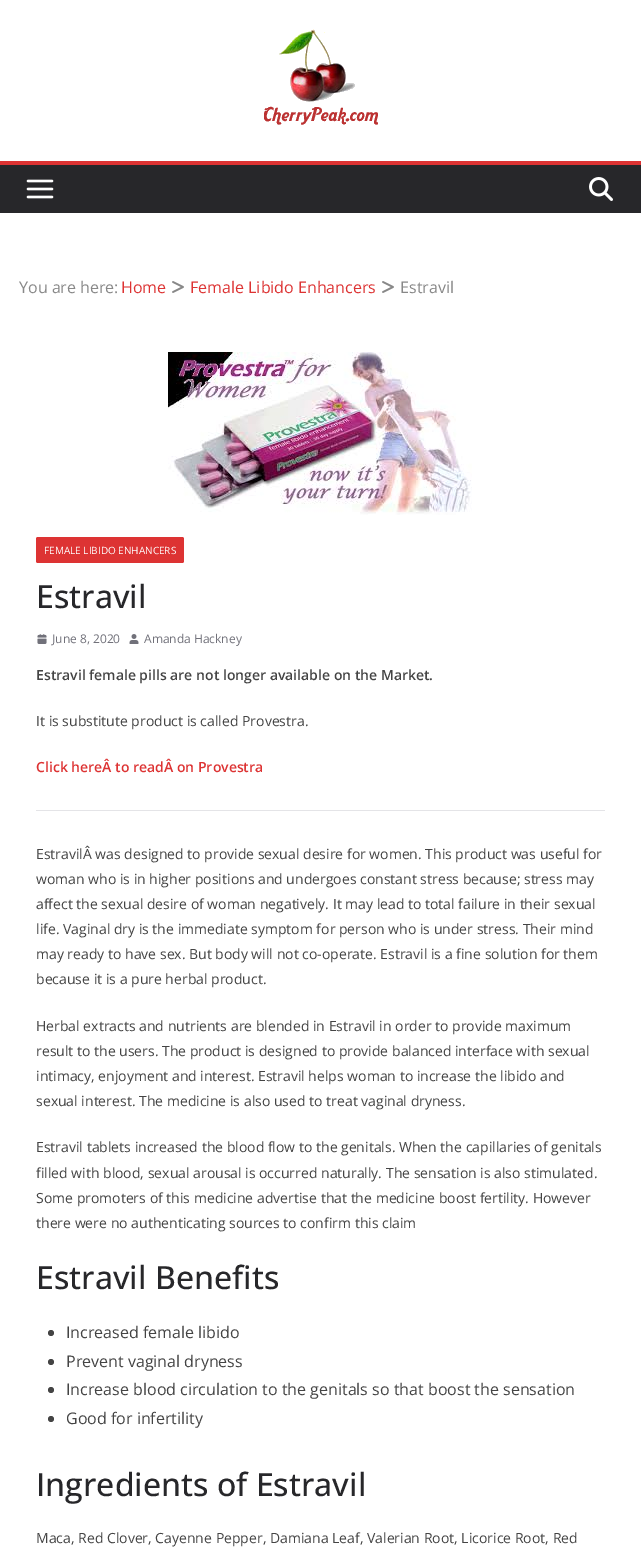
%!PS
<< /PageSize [641 1561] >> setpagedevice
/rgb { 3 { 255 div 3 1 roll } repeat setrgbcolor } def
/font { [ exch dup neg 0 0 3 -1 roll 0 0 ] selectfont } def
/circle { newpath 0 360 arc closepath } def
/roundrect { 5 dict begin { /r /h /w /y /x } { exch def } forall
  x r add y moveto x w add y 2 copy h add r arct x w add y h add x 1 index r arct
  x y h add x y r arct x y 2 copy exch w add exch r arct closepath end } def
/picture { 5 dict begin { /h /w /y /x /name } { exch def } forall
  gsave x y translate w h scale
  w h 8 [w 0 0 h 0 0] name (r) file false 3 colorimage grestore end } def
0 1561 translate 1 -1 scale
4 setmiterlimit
255 255 255 rgb
0 0 641 1561 rectfill
(img/1.rgb) 264 29 114 96 picture
39 39 42 rgb
0 165 641 48 rectfill
221 51 51 rgb
0 161 641 4 rectfill
(img/2.rgb) 26 179 28 20 picture
(img/3.rgb) 589 177 24 24 picture
(img/4.rgb) 172 281 12 12 picture
(img/4.rgb) 382 281 12 12 picture
(img/5.rgb) 168 352 304 163 picture
36 537 148 26 2 roundrect fill
(img/6.rgb) 37 634 10 10 picture
(img/7.rgb) 129 634 10 10 picture
228 228 231 rgb
36 810 569 1 rectfill
68 68 68 rgb
51 1333 3 circle fill
51 1362 3 circle fill
51 1390 3 circle fill
51 1419 3 circle fill
/OpenSans-Regular 16 font
136 136 136 rgb
19 293 moveto (You are here:) show
221 51 51 rgb
121 293 moveto (Home) show
190 293 moveto (Female Libido Enhancers) show
136 136 136 rgb
400 293 moveto (Estravil) show
/OpenSans-Regular 10 font
255 255 255 rgb
44 554 moveto (FEMALE LIBIDO ENHANCERS) show
/OpenSans-Medium 32 font
39 39 42 rgb
36 608 moveto (Estravil) show
/OpenSans-Regular 12 font
113 113 122 rgb
52 643 moveto (June 8, 2020) show
144 643 moveto (Amanda Hackney) show
/OpenSans-SemiBold 14 font
68 68 68 rgb
36 680 moveto (Estravil female pills are not longer available on the Market.) show
/OpenSans-Regular 14 font
36 726 moveto (It is substitute product is called Provestra.) show
/OpenSans-SemiBold 14 font
221 51 51 rgb
36 772 moveto (Click hereÂ to readÂ on Provestra) show
/OpenSans-Regular 14 font
68 68 68 rgb
[
  [(EstravilÂ was designed to provide sexual desire for women. This product was useful for) 36 859]
  [(woman who is in higher positions and undergoes constant stress because; stress may) 36 884]
  [(affect the sexual desire of woman negatively. It may lead to total failure in their sexual) 36 909]
  [(life. Vaginal dry is the immediate symptom for person who is under stress. Their mind) 36 934]
  [(may ready to have sex. But body will not co-operate. Estravil is a fine solution for them) 36 959]
  [(because it is a pure herbal product.) 36 984]
  [(Herbal extracts and nutrients are blended in Estravil in order to provide maximum) 36 1031]
  [(result to the users. The product is designed to provide balanced interface with sexual) 36 1056]
  [(intimacy, enjoyment and interest. Estravil helps woman to increase the libido and) 36 1081]
  [(sexual interest. The medicine is also used to treat vaginal dryness.) 36 1106]
  [(Estravil tablets increased the blood flow to the genitals. When the capillaries of genitals) 36 1152]
  [(filled with blood, sexual arousal is occurred naturally. The sensation is also stimulated.) 36 1178]
  [(Some promoters of this medicine advertise that the medicine boost fertility. However) 36 1203]
  [(there were no authenticating sources to confirm this claim) 36 1228]
] { aload pop moveto show } forall
/OpenSans-Medium 32 font
39 39 42 rgb
36 1289 moveto (Estravil Benefits) show
/OpenSans-Regular 16 font
68 68 68 rgb
[
  [(Increased female libido) 66 1338]
  [(Prevent vaginal dryness) 66 1367]
  [(Increase blood circulation to the genitals so that boost the sensation) 66 1395]
  [(Good for infertility) 66 1424]
] { aload pop moveto show } forall
/OpenSans-Medium 32 font
39 39 42 rgb
36 1496 moveto (Ingredients of Estravil) show
/OpenSans-Regular 14 font
68 68 68 rgb
36 1543 moveto (Maca, Red Clover, Cayenne Pepper, Damiana Leaf, Valerian Root, Licorice Root, Red) show
showpage
